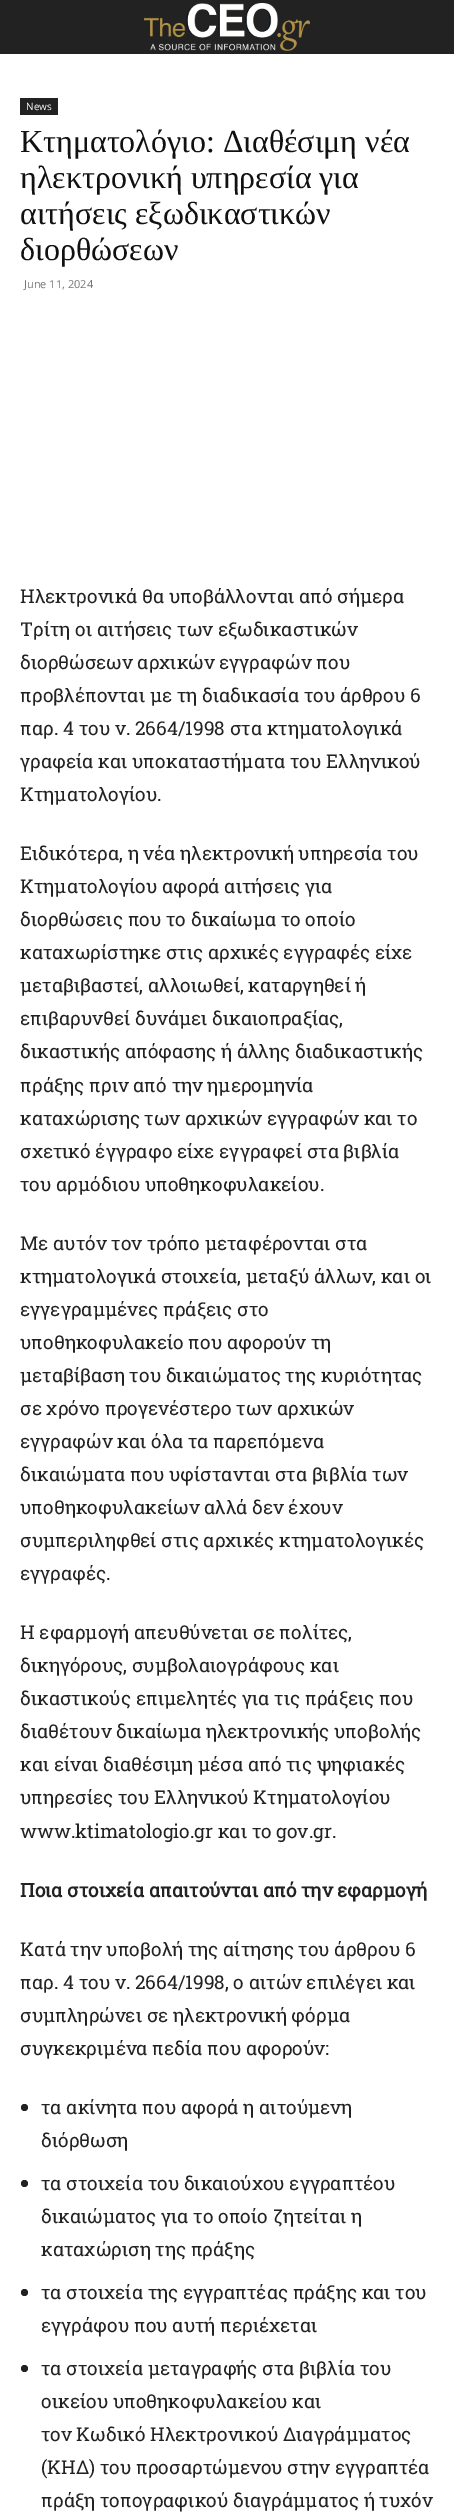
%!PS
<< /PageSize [454 2513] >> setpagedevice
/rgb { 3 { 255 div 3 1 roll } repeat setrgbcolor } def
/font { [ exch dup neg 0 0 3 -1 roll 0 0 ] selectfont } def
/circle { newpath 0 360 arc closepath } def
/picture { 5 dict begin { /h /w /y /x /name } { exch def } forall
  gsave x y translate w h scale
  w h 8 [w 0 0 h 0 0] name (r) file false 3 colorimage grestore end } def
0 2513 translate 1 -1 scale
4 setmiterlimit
255 255 255 rgb
0 0 454 2513 rectfill
34 34 34 rgb
0 0 454 54 rectfill
(img/1.rgb) 144 3 166 48 picture
20 98 38 17 rectfill
24.5 2107.5 3.5 circle fill
24.5 2183.5 3.5 circle fill
24.5 2292.5 3.5 circle fill
24.5 2368.5 3.5 circle fill
/OpenSans-Regular 10 font
255 255 255 rgb
26 110 moveto (News) show
/LiberationSerif-Regular 32 font
17 17 17 rgb
[
  [(Κτηματολόγιο: Διαθέσιμη νέα) 20 152]
  [(ηλεκτρονική υπηρεσία για) 20 188]
  [(αιτήσεις εξωδικαστικών) 20 224]
  [(διορθώσεων) 20 260]
] { aload pop moveto show } forall
/OpenSans-Regular 11 font
118 118 118 rgb
24 288 moveto (June 11, 2024) show
/RobotoSlab-Regular 19 font
34 34 34 rgb
[
  [(Ηλεκτρονικά θα υποβάλλονται από σήμερα) 20 603]
  [(Τρίτη οι αιτήσεις των εξωδικαστικών) 20 636]
  [(διορθώσεων αρχικών εγγραφών που) 20 669]
  [(προβλέπονται με τη διαδικασία του άρθρου 6) 20 702]
  [(παρ. 4 του ν. 2664/1998 στα κτηματολογικά) 20 735]
  [(γραφεία και υποκαταστήματα του Ελληνικού) 20 768]
  [(Κτηματολογίου.) 20 801]
  [(Ειδικότερα, η νέα ηλεκτρονική υπηρεσία του) 20 860]
  [(Κτηματολογίου αφορά αιτήσεις για) 20 893]
  [(διορθώσεις που το δικαίωμα το οποίο) 20 926]
  [(καταχωρίστηκε στις αρχικές εγγραφές είχε) 20 959]
  [(μεταβιβαστεί, αλλοιωθεί, καταργηθεί ή) 20 992]
  [(επιβαρυνθεί δυνάμει δικαιοπραξίας,) 20 1025]
  [(δικαστικής απόφασης ή άλλης διαδικαστικής) 20 1058]
  [(πράξης πριν από την ημερομηνία) 20 1092]
  [(καταχώρισης των αρχικών εγγραφών και το) 20 1125]
  [(σχετικό έγγραφο είχε εγγραφεί στα βιβλία) 20 1158]
  [(του αρμόδιου υποθηκοφυλακείου.) 20 1191]
  [(Με αυτόν τον τρόπο μεταφέρονται στα) 20 1250]
  [(κτηματολογικά στοιχεία, μεταξύ άλλων, και οι) 20 1283]
  [(εγγεγραμμένες πράξεις στο) 20 1316]
  [(υποθηκοφυλακείο που αφορούν τη) 20 1349]
  [(μεταβίβαση του δικαιώματος της κυριότητας) 20 1382]
  [(σε χρόνο προγενέστερο των αρχικών) 20 1415]
  [(εγγραφών και όλα τα παρεπόμενα) 20 1448]
  [(δικαιώματα που υφίστανται στα βιβλία των) 20 1481]
  [(υποθηκοφυλακείων αλλά δεν έχουν) 20 1514]
  [(συμπεριληφθεί στις αρχικές κτηματολογικές) 20 1547]
  [(εγγραφές.) 20 1580]
  [(Η εφαρμογή απευθύνεται σε πολίτες,) 20 1639]
  [(δικηγόρους, συμβολαιογράφους και) 20 1672]
  [(δικαστικούς επιμελητές για τις πράξεις που) 20 1705]
  [(διαθέτουν δικαίωμα ηλεκτρονικής υποβολής) 20 1738]
  [(και είναι διαθέσιμη μέσα από τις ψηφιακές) 20 1771]
  [(υπηρεσίες του Ελληνικού Κτηματολογίου) 20 1804]
  [(www.ktimatologio.gr και το gov.gr.) 20 1838]
] { aload pop moveto show } forall
/RobotoSlab-Bold 19 font
20 1897 moveto (Ποια στοιχεία απαιτούνται από την εφαρμογή) show
/RobotoSlab-Regular 19 font
[
  [(Κατά την υποβολή της αίτησης του άρθρου 6) 20 1956]
  [(παρ. 4 του ν. 2664/1998, ο αιτών επιλέγει και) 20 1989]
  [(συμπληρώνει σε ηλεκτρονική φόρμα) 20 2022]
  [(συγκεκριμένα πεδία που αφορούν:) 20 2055]
  [(τα ακίνητα που αφορά η αιτούμενη) 41 2114]
  [(διόρθωση) 41 2147]
  [(τα στοιχεία του δικαιούχου εγγραπτέου) 41 2190]
  [(δικαιώματος για το οποίο ζητείται η) 41 2223]
  [(καταχώριση της πράξης) 41 2256]
  [(τα στοιχεία της εγγραπτέας πράξης και του) 41 2299]
  [(εγγράφου που αυτή περιέχεται) 41 2332]
  [(τα στοιχεία μεταγραφής στα βιβλία του) 41 2375]
  [(οικείου υποθηκοφυλακείου και) 41 2408]
  [(τον Κωδικό Ηλεκτρονικού Διαγράμματος) 41 2441]
  [(\(ΚΗΔ\) του προσαρτώμενου στην εγγραπτέα) 41 2474]
  [(πράξη τοπογραφικού διαγράμματος ή τυχόν) 41 2507]
] { aload pop moveto show } forall
showpage
